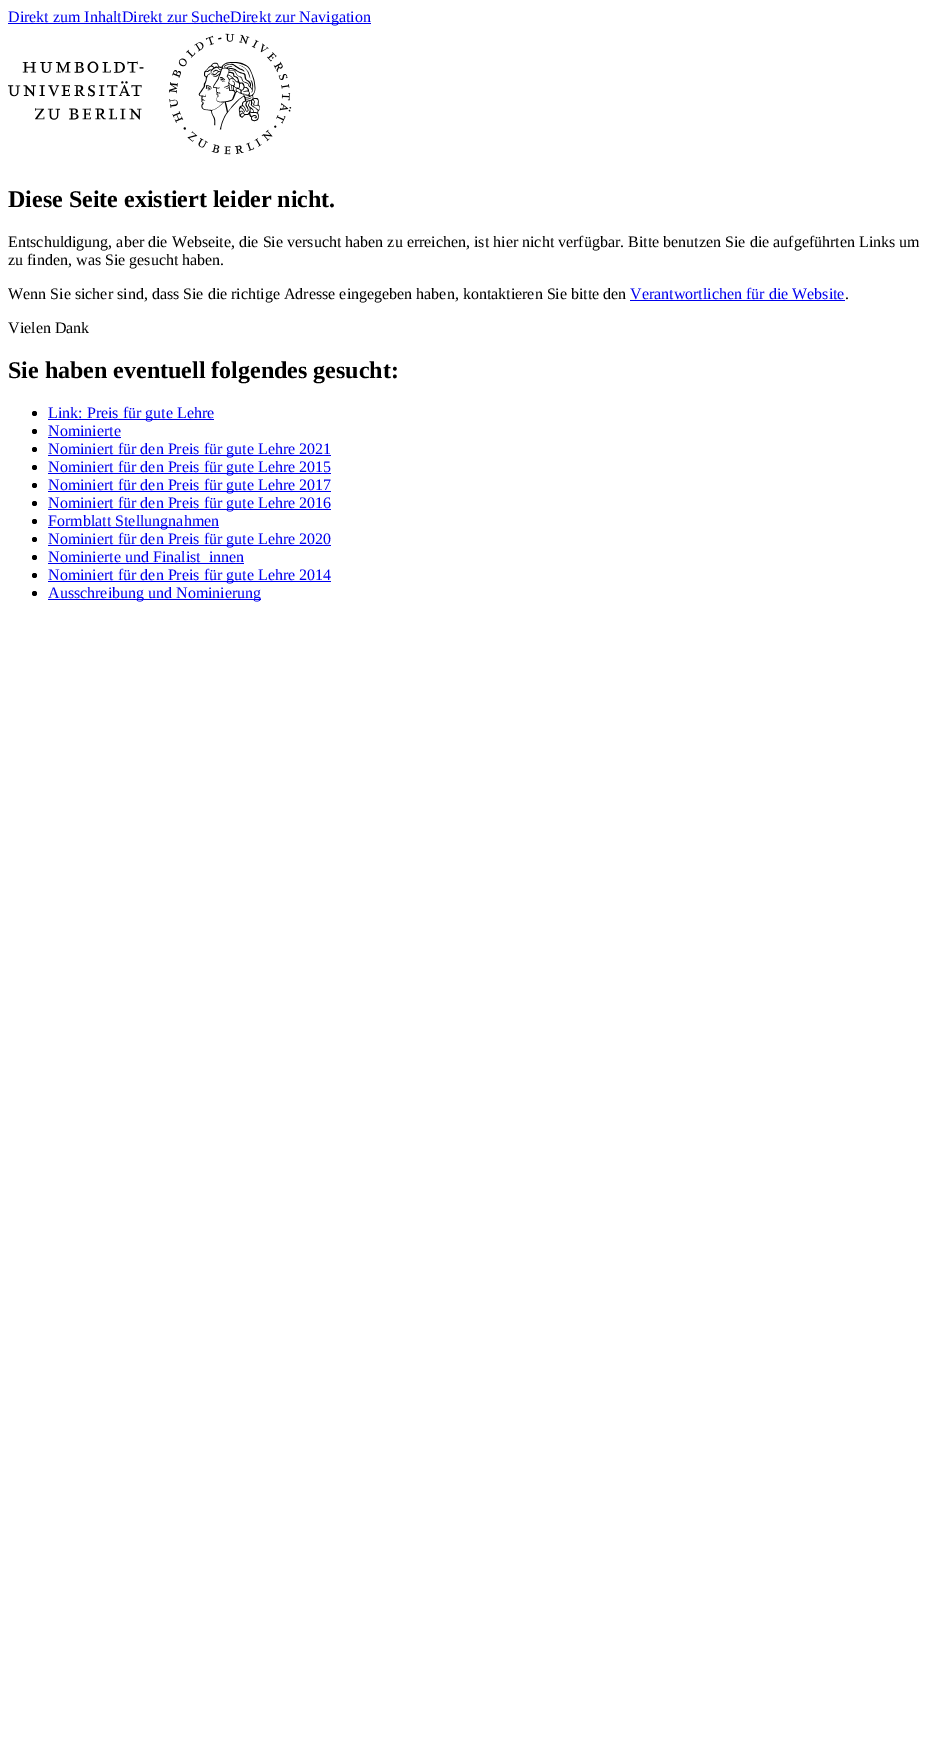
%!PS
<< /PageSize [934 1746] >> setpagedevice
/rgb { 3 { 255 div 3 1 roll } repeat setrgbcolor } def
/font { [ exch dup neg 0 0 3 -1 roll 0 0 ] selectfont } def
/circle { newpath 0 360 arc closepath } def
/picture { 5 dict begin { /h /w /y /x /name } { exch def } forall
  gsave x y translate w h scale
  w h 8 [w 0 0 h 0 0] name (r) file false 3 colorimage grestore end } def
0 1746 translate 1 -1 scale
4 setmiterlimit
255 255 255 rgb
0 0 934 1746 rectfill
0 0 238 rgb
8 23 363 1 rectfill
(img/1.rgb) 8 33 284 122 picture
630 300 215 1 rectfill
0 0 0 rgb
34.5 413.5 2.5 circle fill
0 0 238 rgb
48 419 166 1 rectfill
0 0 0 rgb
34.5 431.5 2.5 circle fill
0 0 238 rgb
48 437 73 1 rectfill
0 0 0 rgb
34.5 449.5 2.5 circle fill
0 0 238 rgb
48 455 283 1 rectfill
0 0 0 rgb
34.5 467.5 2.5 circle fill
0 0 238 rgb
48 473 283 1 rectfill
0 0 0 rgb
34.5 485.5 2.5 circle fill
0 0 238 rgb
48 491 283 1 rectfill
0 0 0 rgb
34.5 503.5 2.5 circle fill
0 0 238 rgb
48 509 283 1 rectfill
0 0 0 rgb
34.5 521.5 2.5 circle fill
0 0 238 rgb
48 527 171 1 rectfill
0 0 0 rgb
34.5 539.5 2.5 circle fill
0 0 238 rgb
48 545 283 1 rectfill
0 0 0 rgb
34.5 557.5 2.5 circle fill
0 0 238 rgb
48 563 196 1 rectfill
0 0 0 rgb
34.5 575.5 2.5 circle fill
0 0 238 rgb
48 581 283 1 rectfill
0 0 0 rgb
34.5 593.5 2.5 circle fill
0 0 238 rgb
48 599 213 1 rectfill
/LiberationSerif-Regular 16 font
8 22 moveto (Direkt zum InhaltDirekt zur SucheDirekt zur Navigation) show
/LiberationSerif-Bold 24 font
0 0 0 rgb
8 207 moveto (Diese Seite existiert leider nicht.) show
/LiberationSerif-Regular 16 font
[
  [(Entschuldigung, aber die Webseite, die Sie versucht haben zu erreichen, ist hier nicht verfügbar. Bitte benutzen Sie die aufgeführten Links um) 8 247]
  [(zu finden, was Sie gesucht haben.) 8 265]
  [(Wenn Sie sicher sind, dass Sie die richtige Adresse eingegeben haben, kontaktieren Sie bitte den) 8 299]
] { aload pop moveto show } forall
0 0 238 rgb
630 299 moveto (Verantwortlichen für die Website) show
0 0 0 rgb
845 299 moveto (.) show
8 333 moveto (Vielen Dank) show
/LiberationSerif-Bold 24 font
8 378 moveto (Sie haben eventuell folgendes gesucht:) show
/LiberationSerif-Regular 16 font
0 0 238 rgb
[
  [(Link: Preis für gute Lehre) 48 418]
  [(Nominierte) 48 436]
  [(Nominiert für den Preis für gute Lehre 2021) 48 454]
  [(Nominiert für den Preis für gute Lehre 2015) 48 472]
  [(Nominiert für den Preis für gute Lehre 2017) 48 490]
  [(Nominiert für den Preis für gute Lehre 2016) 48 508]
  [(Formblatt Stellungnahmen) 48 526]
  [(Nominiert für den Preis für gute Lehre 2020) 48 544]
  [(Nominierte und Finalist_innen) 48 562]
  [(Nominiert für den Preis für gute Lehre 2014) 48 580]
  [(Ausschreibung und Nominierung) 48 598]
] { aload pop moveto show } forall
showpage
